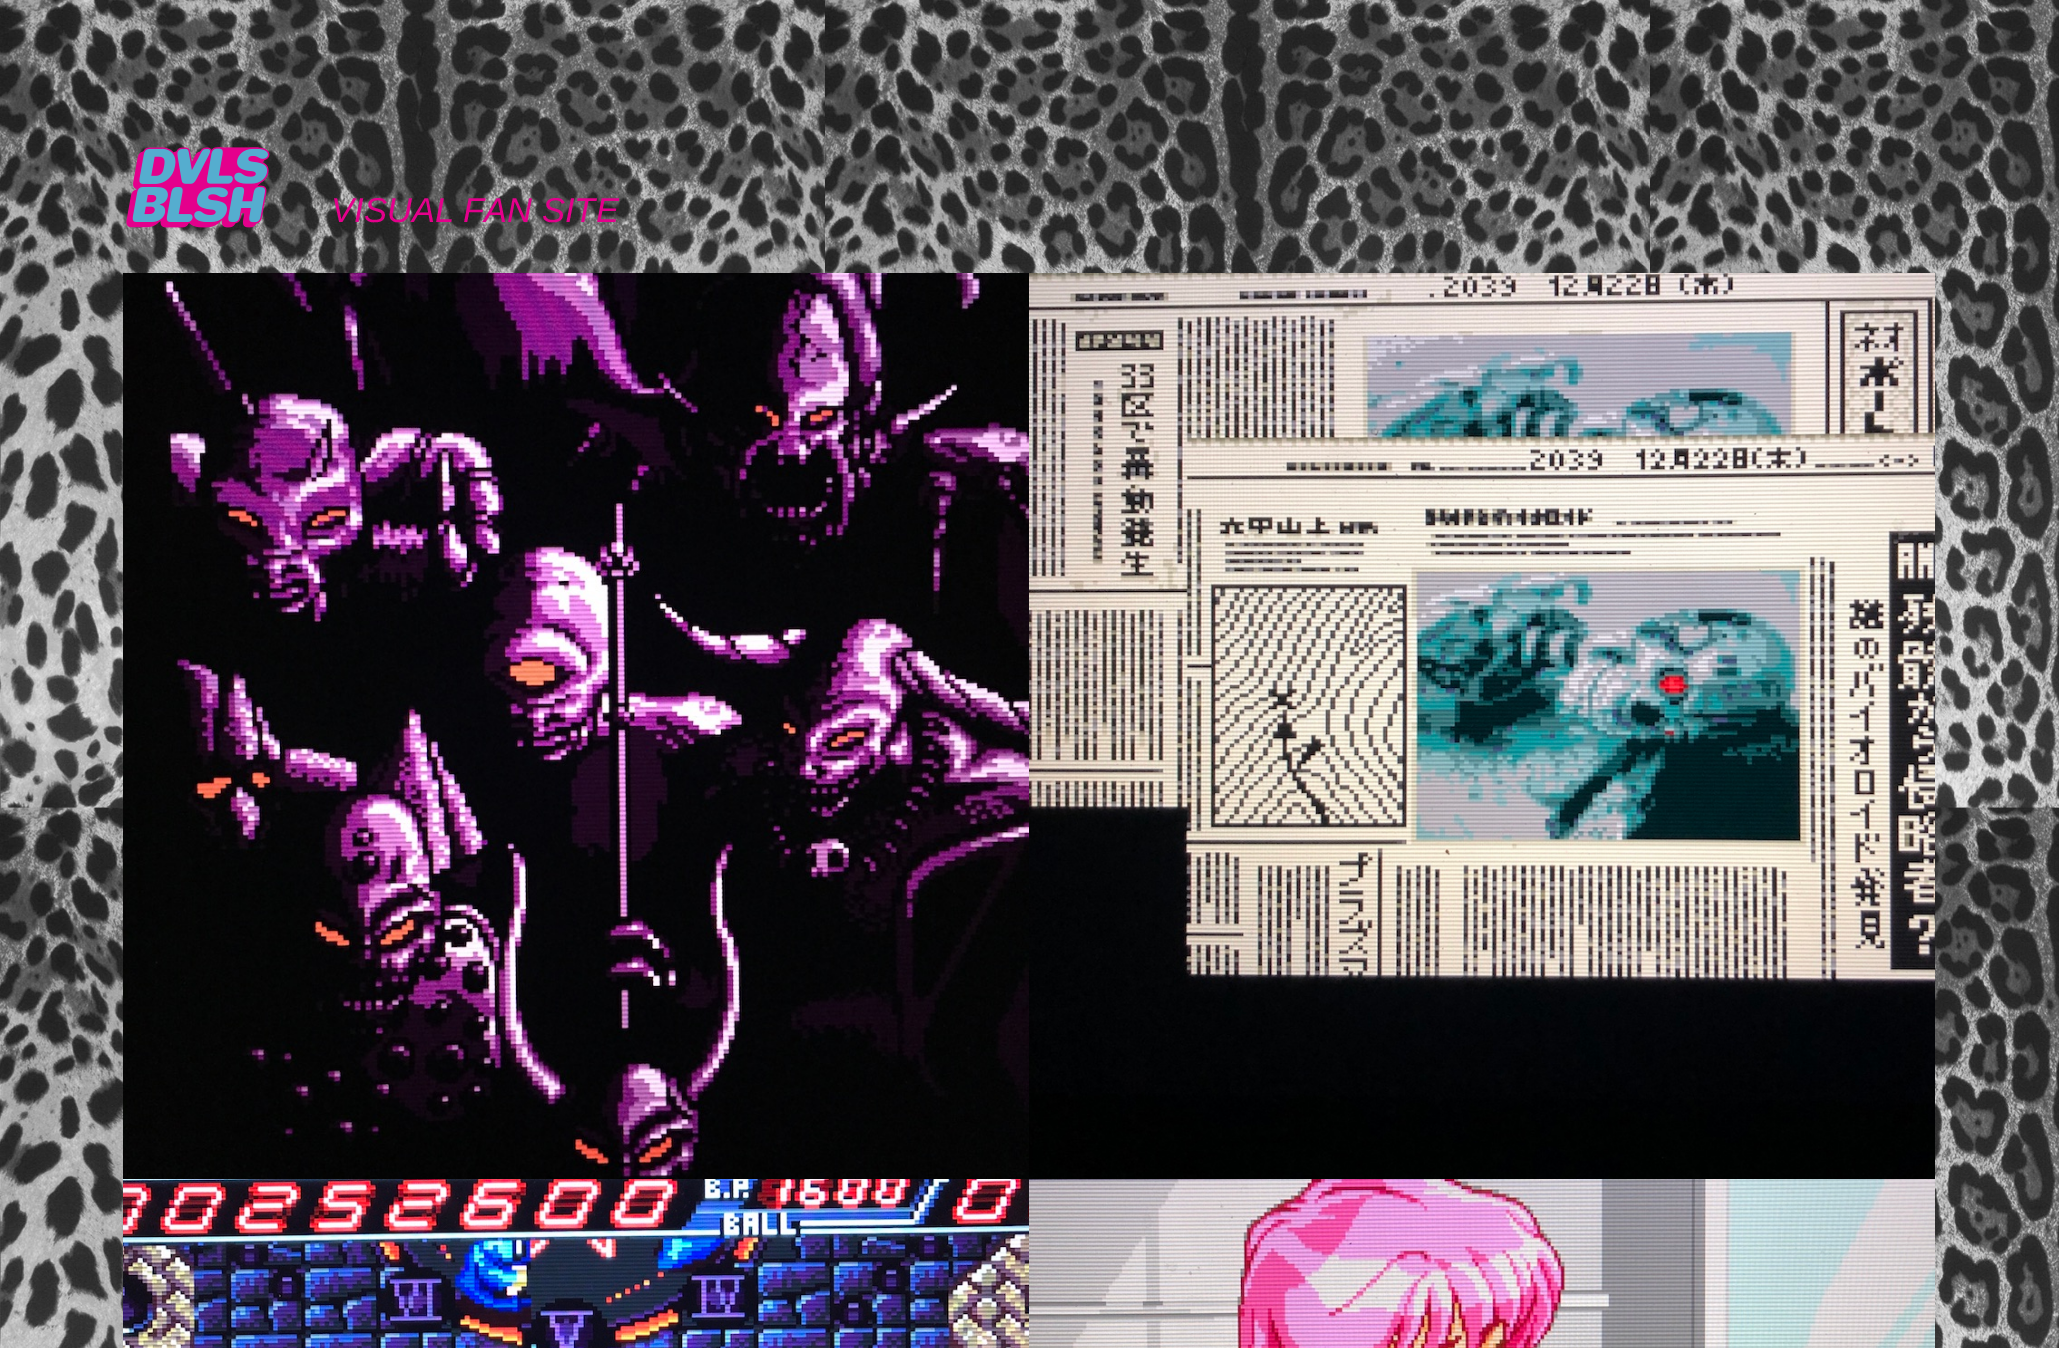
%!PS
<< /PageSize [2059 1348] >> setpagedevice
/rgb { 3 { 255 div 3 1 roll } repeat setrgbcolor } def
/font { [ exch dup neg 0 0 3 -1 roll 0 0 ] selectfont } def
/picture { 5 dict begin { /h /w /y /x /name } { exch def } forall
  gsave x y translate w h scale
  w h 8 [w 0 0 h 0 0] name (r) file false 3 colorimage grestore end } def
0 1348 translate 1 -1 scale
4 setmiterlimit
255 255 255 rgb
0 0 2059 1348 rectfill
(img/1.rgb) 0 0 2059 1348 picture
(img/2.rgb) 126 147 144 81 picture
(img/3.rgb) 123 273 906 906 picture
(img/4.rgb) 1029 273 906 906 picture
(img/5.rgb) 123 1179 906 169 picture
(img/6.rgb) 1029 1179 906 169 picture
/LiberationSans-Italic 34.5 font
228 0 140 rgb
331 222 moveto (VISUAL FAN SITE) show
showpage
